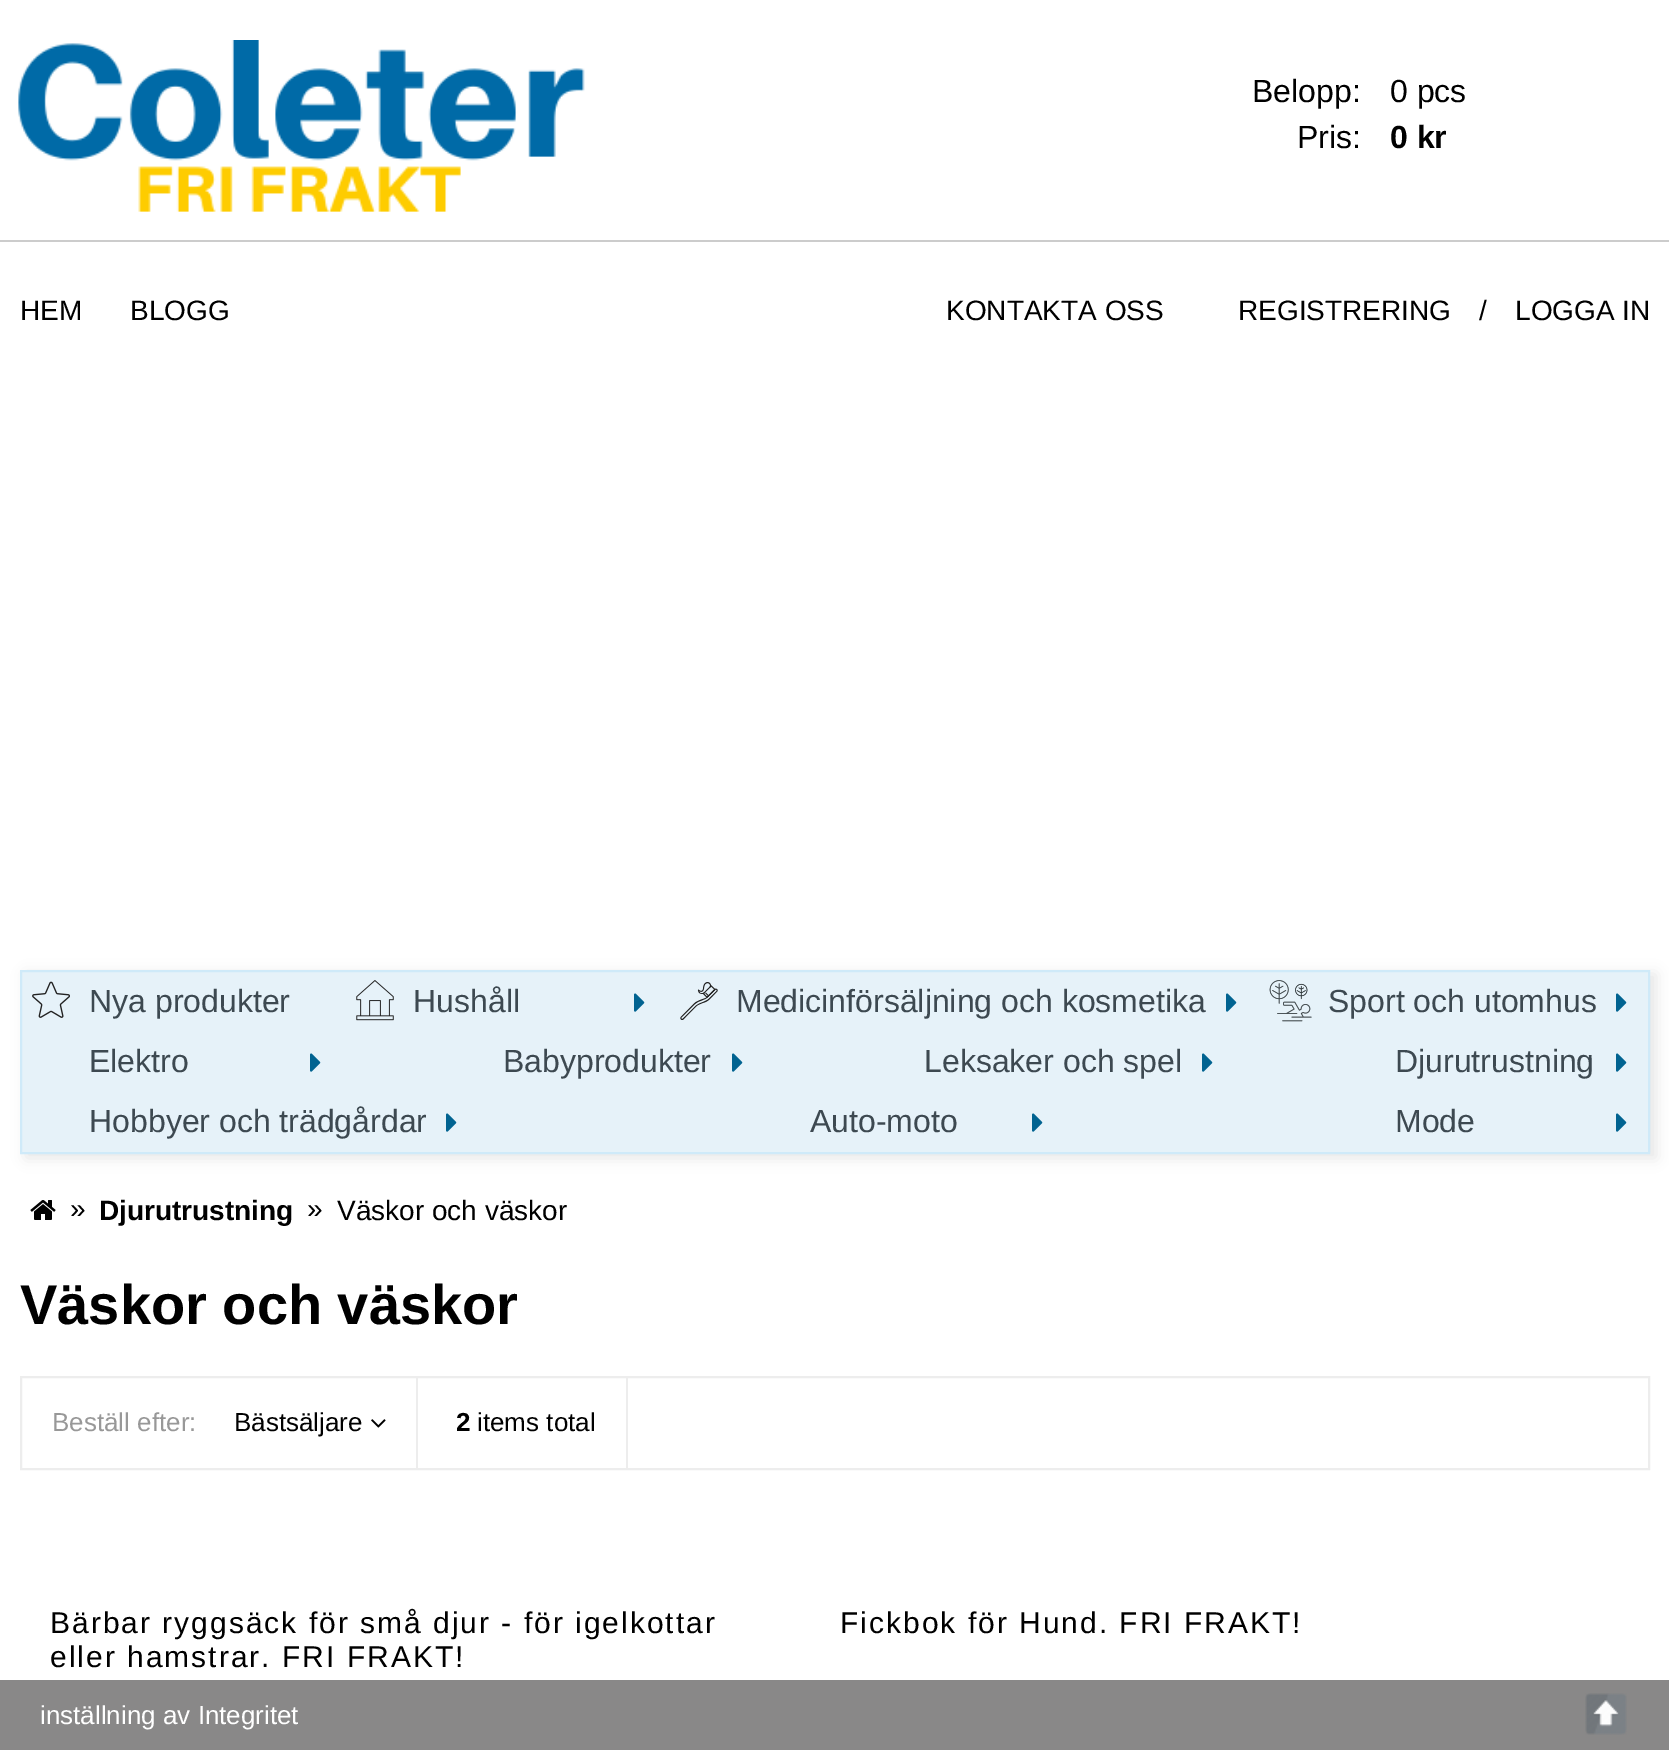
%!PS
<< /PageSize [1669 1750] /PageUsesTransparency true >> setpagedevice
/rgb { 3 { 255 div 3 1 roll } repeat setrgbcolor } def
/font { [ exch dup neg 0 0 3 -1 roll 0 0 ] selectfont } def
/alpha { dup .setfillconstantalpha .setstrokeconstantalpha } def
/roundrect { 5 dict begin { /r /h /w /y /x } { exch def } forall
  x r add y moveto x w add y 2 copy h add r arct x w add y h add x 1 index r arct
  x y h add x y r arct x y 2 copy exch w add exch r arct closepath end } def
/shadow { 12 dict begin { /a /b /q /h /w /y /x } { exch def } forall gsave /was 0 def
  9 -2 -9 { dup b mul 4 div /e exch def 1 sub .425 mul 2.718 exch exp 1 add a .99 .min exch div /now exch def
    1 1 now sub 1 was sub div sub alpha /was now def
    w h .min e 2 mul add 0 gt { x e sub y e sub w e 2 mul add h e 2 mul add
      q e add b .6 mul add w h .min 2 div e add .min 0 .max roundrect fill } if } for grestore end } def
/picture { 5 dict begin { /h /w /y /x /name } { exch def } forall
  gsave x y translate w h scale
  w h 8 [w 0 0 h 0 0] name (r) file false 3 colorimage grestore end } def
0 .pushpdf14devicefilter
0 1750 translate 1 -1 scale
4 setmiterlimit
255 255 255 rgb
0 0 1669 1750 rectfill
204 204 204 rgb
0 240 1669 2 rectfill
(img/1.rgb) 18 40 567 172 picture
0 0 0 rgb
26 974 1630 184 0 7 0.1 shadow
230 242 249 rgb
21 971 moveto 1649 971 lineto 1649 1153 lineto 21 1153 lineto closepath gsave fill grestore
207 234 249 rgb
2 setlinewidth
stroke
(img/2.rgb) 32 981 38 37 picture
(img/3.rgb) 356 980 38 41 picture
(img/4.rgb) 634 993 11 19 picture
(img/5.rgb) 680 982 38 38 picture
(img/4.rgb) 1226 993 11 19 picture
(img/6.rgb) 1269 980 43 42 picture
(img/4.rgb) 1616 993 11 19 picture
(img/4.rgb) 310 1053 11 19 picture
(img/4.rgb) 732 1053 11 19 picture
(img/4.rgb) 1202 1053 11 19 picture
(img/4.rgb) 1616 1053 11 19 picture
(img/4.rgb) 446 1113 11 19 picture
(img/4.rgb) 1032 1113 11 19 picture
(img/4.rgb) 1616 1113 11 19 picture
(img/7.rgb) 30 1200 26 20 picture
237 237 237 rgb
21 1377 1628 92 rectstroke
416 1378 2 90 rectfill
(img/8.rgb) 371 1419 15 9 picture
626 1378 2 90 rectfill
137 136 136 rgb
0 1680 1669 70 rectfill
(img/9.rgb) 1585 1693 42 42 picture
/LiberationSans-Regular 32 font
0 0 0 rgb
[
  [(Belopp:) 1252 102]
  [(0 pcs) 1390 102]
  [(Pris:) 1297 148]
] { aload pop moveto show } forall
/LiberationSans-Bold 32 font
1390 148 moveto (0 kr) show
/LiberationSans-Regular 28 font
[
  [(HEM) 20 320]
  [(BLOGG) 130 320]
  [(KONTAKTA OSS) 946 320]
  [(REGISTRERING) 1238 320]
  [(/) 1479 320]
  [(LOGGA IN) 1515 320]
] { aload pop moveto show } forall
/LiberationSans-Regular 32 font
61 73 81 rgb
[
  [(Nya produkter) 89 1012]
  [(Hushåll) 413 1012]
  [(Medicinförsäljning och kosmetika) 736 1012]
  [(Sport och utomhus) 1328 1012]
  [(Elektro) 89 1072]
  [(Babyprodukter) 503 1072]
  [(Leksaker och spel) 924 1072]
  [(Djurutrustning) 1395 1072]
] { aload pop moveto show } forall
gsave
88 1092 338 60 rectclip
89 1132 moveto (Hobbyer och trädgårdar) show
grestore
810 1132 moveto (Auto-moto) show
1395 1132 moveto (Mode) show
/LiberationSans-Regular 28 font
0 0 0 rgb
70 1218 moveto (») show
/LiberationSans-Bold 28 font
99 1220 moveto (Djurutrustning) show
/LiberationSans-Regular 28 font
307 1218 moveto (») show
337 1220 moveto (Väskor och väskor) show
/LiberationSans-Bold 56 font
20 1324 moveto (Väskor och väskor) show
/LiberationSans-Regular 26 font
152 152 152 rgb
52 1431 moveto (Beställ efter:) show
0 0 0 rgb
234 1431 moveto (Bästsäljare) show
/LiberationSans-Bold 26 font
456 1431 moveto (2) show
/LiberationSans-Regular 26 font
477 1431 moveto (items total) show
/LiberationSans-Regular 30 font
50 1633 moveto 2 0 (Bärbar ryggsäck för små djur - för igelkottar) ashow
50 1667 moveto 2 0 (eller hamstrar. FRI FRAKT!) ashow
840 1633 moveto 2 0 (Fickbok för Hund. FRI FRAKT!) ashow
/LiberationSans-Regular 26 font
255 255 255 rgb
40 1724 moveto (inställning av Integritet) show
.poppdf14devicefilter showpage
